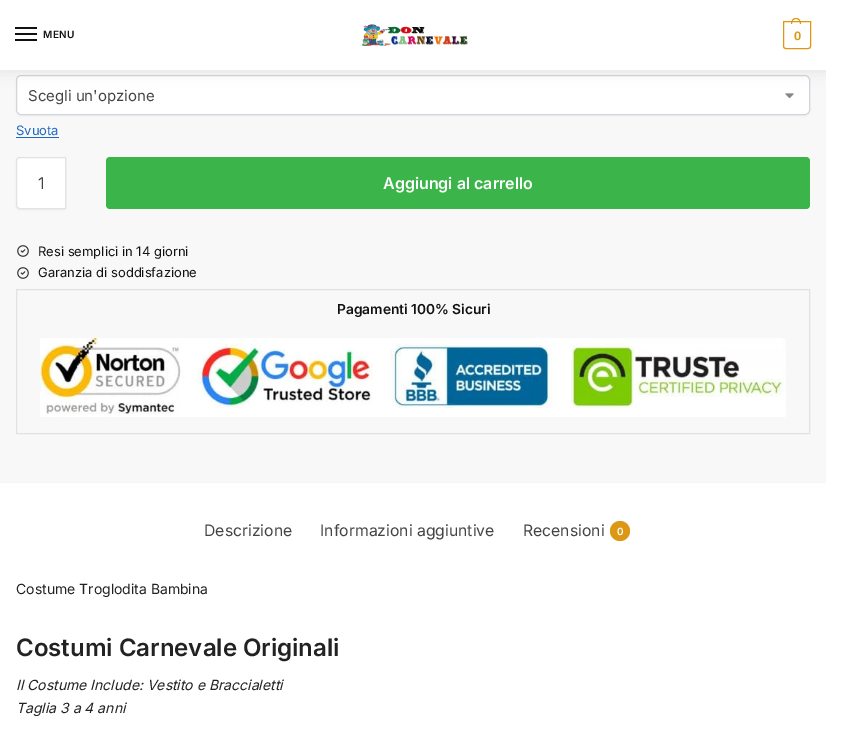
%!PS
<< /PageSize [841 741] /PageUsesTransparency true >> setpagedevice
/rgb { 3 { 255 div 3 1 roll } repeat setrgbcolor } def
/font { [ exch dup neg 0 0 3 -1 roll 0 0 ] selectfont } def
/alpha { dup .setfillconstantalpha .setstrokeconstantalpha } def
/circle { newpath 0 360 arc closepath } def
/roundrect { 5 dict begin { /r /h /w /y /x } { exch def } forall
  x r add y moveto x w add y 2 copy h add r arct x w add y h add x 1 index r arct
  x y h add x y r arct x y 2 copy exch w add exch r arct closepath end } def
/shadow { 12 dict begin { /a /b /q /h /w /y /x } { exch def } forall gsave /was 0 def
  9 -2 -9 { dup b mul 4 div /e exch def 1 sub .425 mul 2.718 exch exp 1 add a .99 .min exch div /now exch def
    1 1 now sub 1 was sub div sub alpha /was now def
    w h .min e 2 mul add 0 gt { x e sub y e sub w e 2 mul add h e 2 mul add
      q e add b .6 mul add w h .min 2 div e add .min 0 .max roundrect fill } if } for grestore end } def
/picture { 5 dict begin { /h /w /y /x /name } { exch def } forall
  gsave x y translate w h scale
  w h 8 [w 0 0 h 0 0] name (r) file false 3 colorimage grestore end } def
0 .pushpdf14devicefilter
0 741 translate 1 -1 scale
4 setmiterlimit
248 248 248 rgb
0 0 841 741 rectfill
0 0 0 rgb
16 76 794 40 5 1 0.05 shadow
255 255 255 rgb
16 75 794 40 5 roundrect fill
(img/2.rgb) 785 93 9 6 picture
210 214 220 rgb
16.5 75.5 793 39 4.5 roundrect stroke
0 0 0 rgb
0 1 826 70 0 7.5 0.08 shadow
[
  [0 0 826 70 255 255 255]
  [15 27 22 2 17 17 17]
  [15 33 22 2 17 17 17]
  [15 39 22 2 17 17 17]
] { aload pop rgb rectfill } forall
(img/1.rgb) 361 24 107 22 picture
220 152 20 rgb
783.5 21.5 moveto 810.5 21.5 lineto 810.5 46 lineto 810.5 47.5 809.5 48.5 808 48.5 curveto 786 48.5 lineto 784.5 48.5 783.5 47.5 783.5 46 curveto closepath stroke
796 18 moveto 799.5 18 801 21 801 24 curveto 791 24 lineto 791 21 792.5 18 796 18 curveto closepath 796 19 moveto 799 19 800 21.5 800 24 curveto 792 24 lineto 792 21.5 793 19 796 19 curveto closepath eofill
255 255 255 rgb
826 0 15 741 rectfill
30 104 196 rgb
16 137 43 1 rectfill
0 0 0 rgb
16 158 50 52 4 1 0.05 shadow
255 255 255 rgb
20 157.5 moveto 65.5 157.5 lineto 65.5 208.5 lineto 20 208.5 lineto 18 208.5 16.5 207 16.5 205 curveto 16.5 161 lineto 16.5 159 18 157.5 20 157.5 curveto closepath gsave fill grestore
226 226 226 rgb
stroke
59 181 74 rgb
106 157 704 52 4 roundrect fill
(img/3.rgb) 17 245 12 12 picture
(img/3.rgb) 17 267 12 12 picture
226 226 226 rgb
16.5 289.5 793 144 rectstroke
(img/4.rgb) 40 338 746 79 picture
255 255 255 rgb
0 483 826 258 rectfill
245 245 245 rgb
0 482 826 1 rectfill
220 152 20 rgb
620 531 10 circle fill
/Inter-SemiBold 10 font
17 17 17 rgb
43 38 moveto 0.5 0 (MENU) ashow
/IBMPlexSans-SemiBold 12 font
220 152 20 rgb
794 40 moveto -1 0 (0) ashow
/Inter-Regular 15 font
68 68 68 rgb
28 101 moveto (Scegli un'opzione) show
/Inter-Regular 13 font
30 104 196 rgb
16 135 moveto (Svuota) show
/Inter-Regular 16 font
68 68 68 rgb
38 189 moveto (1) show
/Inter-SemiBold 16 font
255 255 255 rgb
383 189 moveto (Aggiungi al carrello) show
/Inter-Regular 13 font
17 17 17 rgb
38 256 moveto (Resi semplici in 14 giorni) show
38 277 moveto (Garanzia di soddisfazione) show
/Inter-SemiBold 13.75 font
337 314 moveto (Pagamenti 100% Sicuri) show
/Inter-Regular 15.75 font
68 68 68 rgb
[
  [(Descrizione) 204 536]
  [(Informazioni aggiuntive) 320 536]
  [(Recensioni) 523 536]
] { aload pop moveto show } forall
/Inter-SemiBold 10 font
255 255 255 rgb
617 535 moveto (0) show
/Inter-Regular 14 font
34 34 34 rgb
16 594 moveto (Costume Troglodita Bambina) show
/Inter-SemiBold 24 font
16 656 moveto (Costumi Carnevale Originali) show
/Inter-Italic 14 font
16 690 moveto (Il Costume Include: Vestito e Braccialetti) show
16 713 moveto (Taglia 3 a 4 anni) show
.poppdf14devicefilter showpage
